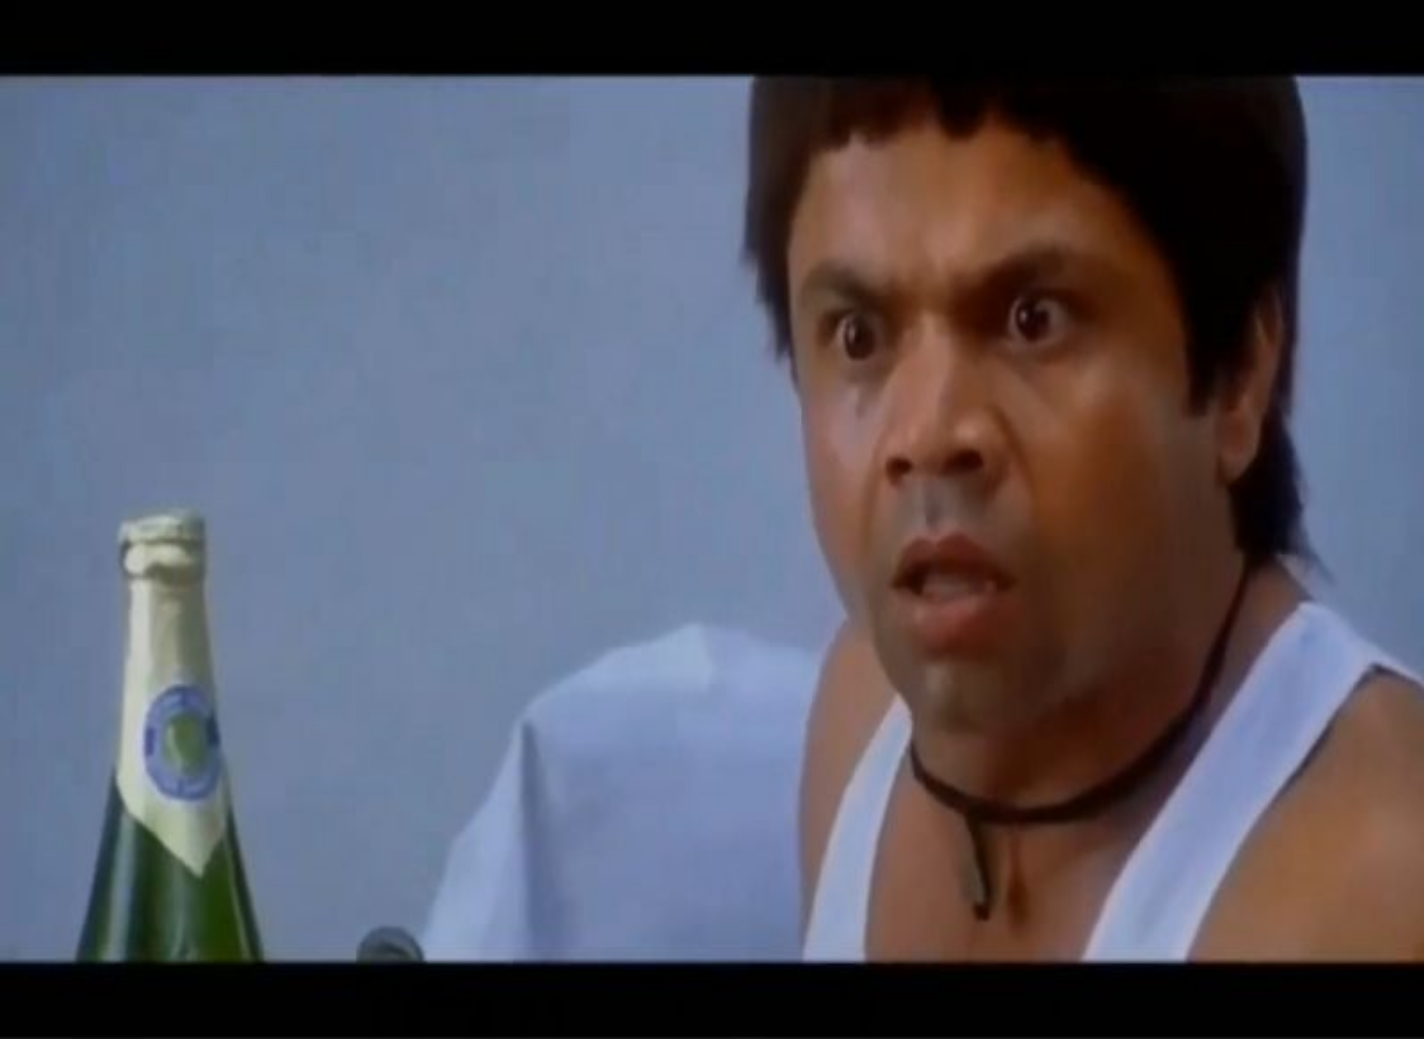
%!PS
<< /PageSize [1424 1039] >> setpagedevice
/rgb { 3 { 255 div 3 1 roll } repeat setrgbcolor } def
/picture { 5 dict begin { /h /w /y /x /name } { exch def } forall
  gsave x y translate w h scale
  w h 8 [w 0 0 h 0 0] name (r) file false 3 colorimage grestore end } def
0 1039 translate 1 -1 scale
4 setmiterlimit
255 255 255 rgb
0 0 1424 1039 rectfill
(img/1.rgb) 0 0 1424 1039 picture
showpage
